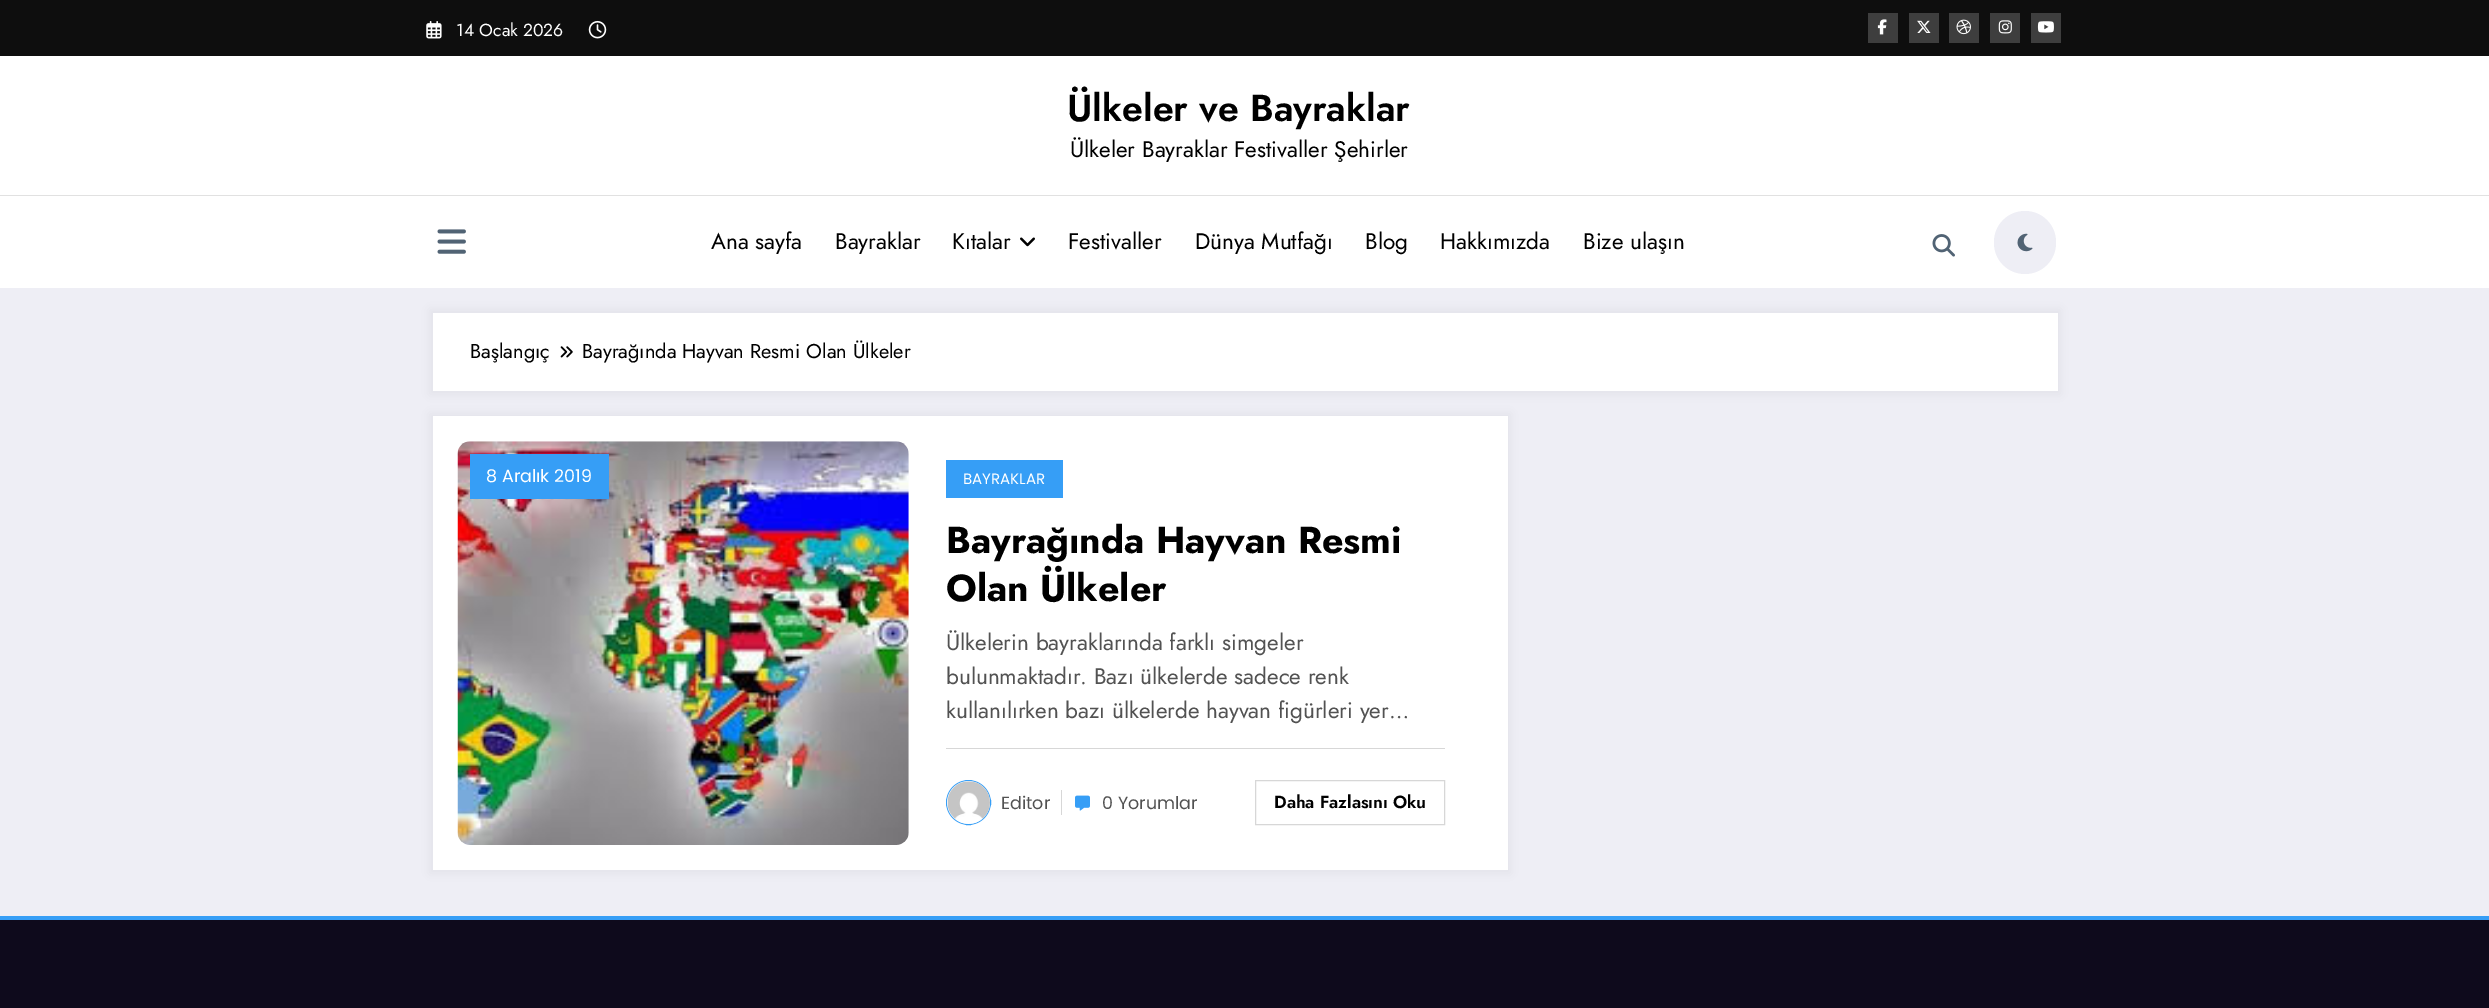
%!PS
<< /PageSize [2489 1008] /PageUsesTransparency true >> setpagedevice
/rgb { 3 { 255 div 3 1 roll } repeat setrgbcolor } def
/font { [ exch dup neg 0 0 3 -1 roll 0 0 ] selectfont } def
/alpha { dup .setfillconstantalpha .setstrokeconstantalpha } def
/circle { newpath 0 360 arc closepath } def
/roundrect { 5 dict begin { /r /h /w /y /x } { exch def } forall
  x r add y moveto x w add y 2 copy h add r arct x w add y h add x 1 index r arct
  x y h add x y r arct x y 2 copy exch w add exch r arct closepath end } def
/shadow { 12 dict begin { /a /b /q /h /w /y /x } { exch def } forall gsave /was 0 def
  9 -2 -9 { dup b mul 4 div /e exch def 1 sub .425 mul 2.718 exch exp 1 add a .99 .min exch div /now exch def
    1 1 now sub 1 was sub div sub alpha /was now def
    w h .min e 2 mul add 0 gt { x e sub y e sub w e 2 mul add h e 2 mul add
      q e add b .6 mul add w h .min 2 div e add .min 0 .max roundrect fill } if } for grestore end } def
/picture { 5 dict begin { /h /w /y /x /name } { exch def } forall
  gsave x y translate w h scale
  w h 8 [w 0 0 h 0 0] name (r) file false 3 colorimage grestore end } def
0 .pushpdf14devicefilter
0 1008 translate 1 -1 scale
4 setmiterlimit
238 238 245 rgb
0 0 2489 1008 rectfill
14 14 14 rgb
0 0 2489 56 rectfill
(img/1.rgb) 426 21 16 18 picture
(img/2.rgb) 588 20 19 19 picture
62 62 62 rgb
1868 13 30 30 rectfill
(img/3.rgb) 1877 19 10 16 picture
1909 13 30 30 rectfill
(img/4.rgb) 1917 20 14 13 picture
1949 13 30 30 rectfill
(img/5.rgb) 1956 19 15 16 picture
1990 13 30 30 rectfill
(img/6.rgb) 1998 20 14 14 picture
2031 13 30 30 rectfill
(img/7.rgb) 2037 21 17 12 picture
255 255 255 rgb
0 56 2489 232 rectfill
225 225 225 rgb
0 195 2489 1 rectfill
(img/8.rgb) 437 229 29 25 picture
(img/9.rgb) 1020 237 15 10 picture
(img/10.rgb) 1932 234 23 23 picture
238 238 245 rgb
1994 211 62 63 31 roundrect fill
(img/11.rgb) 2017 233 16 19 picture
23 23 35 rgb
430 310 1630 84 0 5 0.05 shadow
255 255 255 rgb
433 313 1625 78 rectfill
(img/12.rgb) 560 346 13 12 picture
23 23 35 rgb
430 414 1080 459 0 5 0.05 shadow
255 255 255 rgb
433 416 1075 454 rectfill
(img/13.rgb) 457 441 452 404 picture
[
  [470 454 139 45 54 158 246]
  [946 460 117 38 54 158 246]
  [946 748 499 1 215 215 215]
] { aload pop rgb rectfill } forall
54 158 246 rgb
968.5 802.5 22 circle stroke
(img/14.rgb) 947 781 43 43 picture
215 215 215 rgb
1061 790 1 25 rectfill
(img/15.rgb) 1075 795 15 16 picture
1255.5 780.5 189 44 rectstroke
54 158 246 rgb
0 916 2489 4 rectfill
14 10 28 rgb
0 920 2489 88 rectfill
/Jost-Regular 17.5 font
255 255 255 rgb
456 36 moveto (14 Ocak 2026) show
/Jost-SemiBold 37.5 font
0 0 0 rgb
1067 121 moveto (Ülkeler ve Bayraklar) show
/Jost-Regular 22.5 font
[
  [(Ülkeler Bayraklar Festivaller Şehirler) 1070 157]
  [(Ana sayfa) 711 249]
  [(Bayraklar) 835 249]
  [(Kıtalar) 952 249]
  [(Festivaller) 1068 249]
  [(Dünya Mutfağı) 1195 249]
  [(Blog) 1365 249]
  [(Hakkımızda) 1440 249]
  [(Bize ulaşın) 1583 249]
] { aload pop moveto show } forall
/Jost-Regular 20 font
470 358 moveto (Başlangıç) show
582 358 moveto (Bayrağında Hayvan Resmi Olan Ülkeler) show
/Poppins-Regular 17.5 font
255 255 255 rgb
486 482 moveto (8 Aralık 2019) show
/Poppins-Regular 15 font
963 484 moveto (BAYRAKLAR) show
/Jost-Bold 37.5 font
0 0 0 rgb
946 553 moveto (Bayrağında Hayvan Resmi) show
946 601 moveto (Olan Ülkeler) show
/Jost-Regular 22.5 font
82 82 82 rgb
[
  [(Ülkelerin bayraklarında farklı simgeler) 946 650]
  [(bulunmaktadır. Bazı ülkelerde sadece renk) 946 684]
  [(kullanılırken bazı ülkelerde hayvan figürleri yer…) 946 718]
] { aload pop moveto show } forall
/Poppins-Regular 17.5 font
1001 809 moveto (Editor) show
1102 809 moveto (0 Yorumlar) show
/Jost-SemiBold 17.5 font
0 0 0 rgb
1274 808 moveto (Daha Fazlasını Oku) show
.poppdf14devicefilter showpage
